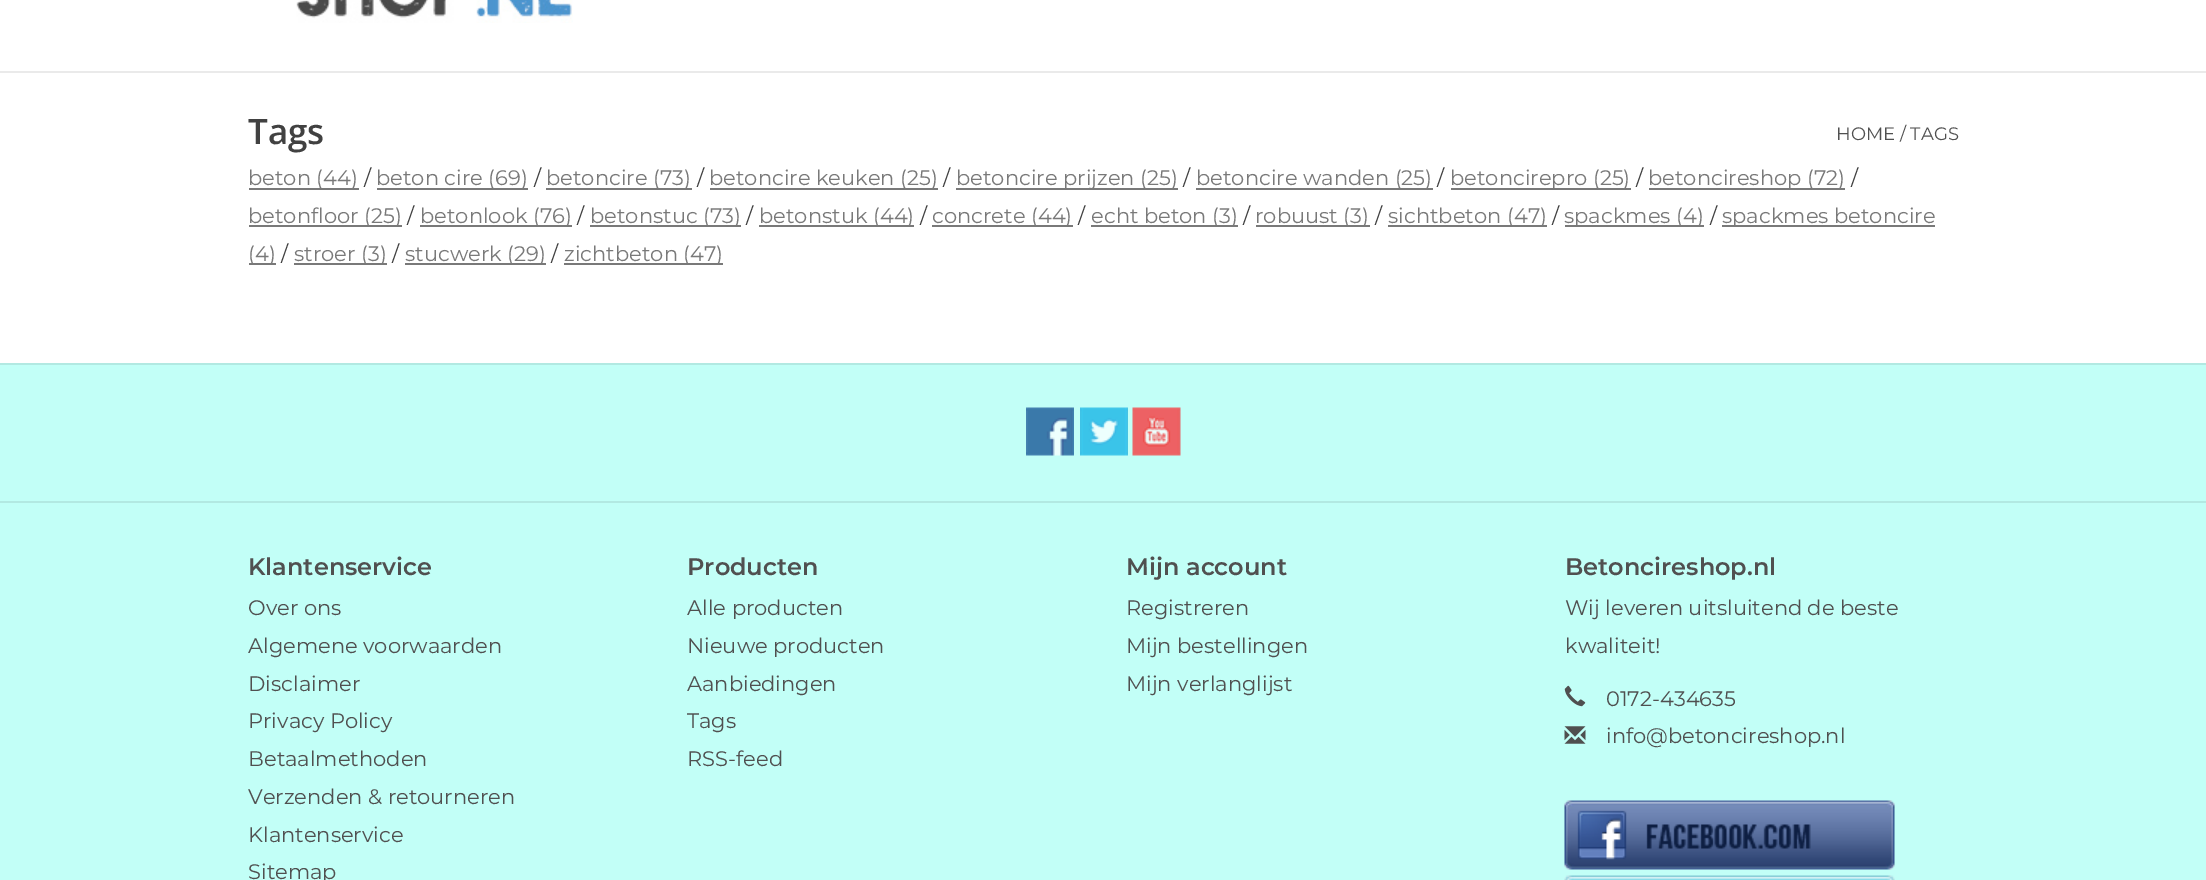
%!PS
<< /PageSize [2206 880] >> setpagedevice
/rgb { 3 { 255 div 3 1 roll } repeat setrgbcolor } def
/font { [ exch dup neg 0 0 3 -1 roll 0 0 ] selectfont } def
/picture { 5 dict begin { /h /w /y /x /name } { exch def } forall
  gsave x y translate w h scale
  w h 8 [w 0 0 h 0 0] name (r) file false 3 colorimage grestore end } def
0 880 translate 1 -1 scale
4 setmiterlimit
255 255 255 rgb
0 0 2206 880 rectfill
234 234 234 rgb
0 71 2206 2 rectfill
(img/1.rgb) 296 0 277 23 picture
[
  [249 188 110 2 121 121 121]
  [377 188 151 2 121 121 121]
  [546 188 146 2 121 121 121]
  [710 188 228 2 121 121 121]
  [956 188 222 2 121 121 121]
  [1196 188 237 2 121 121 121]
  [1451 188 180 2 121 121 121]
  [1649 188 196 2 121 121 121]
  [249 225 153 2 121 121 121]
  [420 225 152 2 121 121 121]
  [590 225 151 2 121 121 121]
  [759 225 155 2 121 121 121]
  [932 225 141 2 121 121 121]
  [1091 225 147 2 121 121 121]
  [1256 225 114 2 121 121 121]
  [1388 225 159 2 121 121 121]
  [1565 225 139 2 121 121 121]
  [1722 225 213 2 121 121 121]
  [249 263 27 2 121 121 121]
  [294 263 93 2 121 121 121]
  [405 263 141 2 121 121 121]
  [564 263 159 2 121 121 121]
  [0 365 2206 515 194 255 247]
  [0 363 2206 2 178 233 226]
] { aload pop rgb rectfill } forall
(img/2.rgb) 1026 407 48 49 picture
(img/3.rgb) 1080 407 48 49 picture
(img/4.rgb) 1132 407 49 49 picture
0 501 2206 2 rectfill
(img/5.rgb) 1564 685 22 22 picture
(img/6.rgb) 1564 726 22 18 picture
(img/7.rgb) 1564 800 331 70 picture
(img/8.rgb) 1564 875 331 5 picture
/OpenSans-SemiBold 35 font
65 65 65 rgb
248 144 moveto (Tags) show
/Montserrat-Regular 18 font
80 80 80 rgb
1836 140 moveto (HOME / TAGS) show
/Montserrat-Regular 21 font
121 121 121 rgb
248 185 moveto (beton \(44\)) show
65 65 65 rgb
364 185 moveto (/) show
121 121 121 rgb
376 185 moveto (beton cire \(69\)) show
65 65 65 rgb
534 185 moveto (/) show
121 121 121 rgb
546 185 moveto (betoncire \(73\)) show
65 65 65 rgb
697 185 moveto (/) show
121 121 121 rgb
709 185 moveto (betoncire keuken \(25\)) show
65 65 65 rgb
943 185 moveto (/) show
121 121 121 rgb
956 185 moveto (betoncire prijzen \(25\)) show
65 65 65 rgb
1183 185 moveto (/) show
121 121 121 rgb
1196 185 moveto (betoncire wanden \(25\)) show
65 65 65 rgb
1437 185 moveto (/) show
121 121 121 rgb
1450 185 moveto (betoncirepro \(25\)) show
65 65 65 rgb
1636 185 moveto (/) show
121 121 121 rgb
1648 185 moveto (betoncireshop \(72\)) show
65 65 65 rgb
1851 185 moveto (/) show
121 121 121 rgb
248 223 moveto (betonfloor \(25\)) show
65 65 65 rgb
407 223 moveto (/) show
121 121 121 rgb
420 223 moveto (betonlook \(76\)) show
65 65 65 rgb
577 223 moveto (/) show
121 121 121 rgb
590 223 moveto (betonstuc \(73\)) show
65 65 65 rgb
746 223 moveto (/) show
121 121 121 rgb
759 223 moveto (betonstuk \(44\)) show
65 65 65 rgb
920 223 moveto (/) show
121 121 121 rgb
932 223 moveto (concrete \(44\)) show
65 65 65 rgb
1078 223 moveto (/) show
121 121 121 rgb
1091 223 moveto (echt beton \(3\)) show
65 65 65 rgb
1243 223 moveto (/) show
121 121 121 rgb
1255 223 moveto (robuust \(3\)) show
65 65 65 rgb
1375 223 moveto (/) show
121 121 121 rgb
1388 223 moveto (sichtbeton \(47\)) show
65 65 65 rgb
1552 223 moveto (/) show
121 121 121 rgb
1564 223 moveto (spackmes \(4\)) show
65 65 65 rgb
1710 223 moveto (/) show
121 121 121 rgb
1722 223 moveto (spackmes betoncire) show
248 261 moveto (\(4\)) show
65 65 65 rgb
281 261 moveto (/) show
121 121 121 rgb
294 261 moveto (stroer \(3\)) show
65 65 65 rgb
392 261 moveto (/) show
121 121 121 rgb
405 261 moveto (stucwerk \(29\)) show
65 65 65 rgb
551 261 moveto (/) show
121 121 121 rgb
564 261 moveto (zichtbeton \(47\)) show
/Montserrat-SemiBold 24 font
80 80 80 rgb
248 575 moveto (Klantenservice) show
/Montserrat-Regular 21 font
[
  [(Over ons) 248 615]
  [(Algemene voorwaarden) 248 653]
  [(Disclaimer) 248 691]
  [(Privacy Policy) 248 728]
  [(Betaalmethoden) 248 766]
  [(Verzenden & retourneren) 248 804]
  [(Klantenservice) 248 842]
  [(Sitemap) 248 879]
] { aload pop moveto show } forall
/Montserrat-SemiBold 24 font
687 575 moveto (Producten) show
/Montserrat-Regular 21 font
[
  [(Alle producten) 687 615]
  [(Nieuwe producten) 687 653]
  [(Aanbiedingen) 687 691]
  [(Tags) 687 728]
  [(RSS-feed) 687 766]
] { aload pop moveto show } forall
/Montserrat-SemiBold 24 font
1126 575 moveto (Mijn account) show
/Montserrat-Regular 21 font
[
  [(Registreren) 1126 615]
  [(Mijn bestellingen) 1126 653]
  [(Mijn verlanglijst) 1126 691]
] { aload pop moveto show } forall
/Montserrat-SemiBold 24 font
1565 575 moveto (Betoncireshop.nl) show
/Montserrat-Regular 21 font
[
  [(Wij leveren uitsluitend de beste) 1565 615]
  [(kwaliteit!) 1565 653]
  [(0172-434635) 1606 706]
  [(info@betoncireshop.nl) 1606 743]
] { aload pop moveto show } forall
showpage
